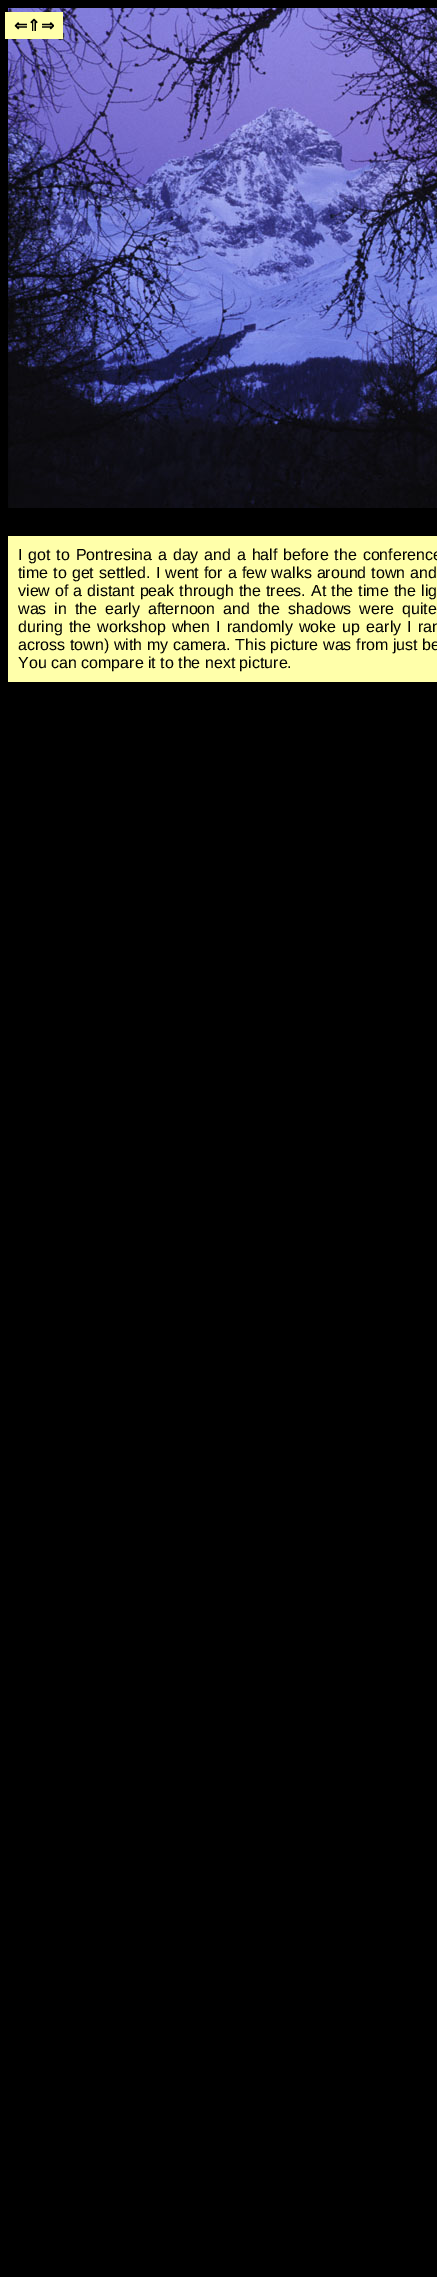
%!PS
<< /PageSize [437 2277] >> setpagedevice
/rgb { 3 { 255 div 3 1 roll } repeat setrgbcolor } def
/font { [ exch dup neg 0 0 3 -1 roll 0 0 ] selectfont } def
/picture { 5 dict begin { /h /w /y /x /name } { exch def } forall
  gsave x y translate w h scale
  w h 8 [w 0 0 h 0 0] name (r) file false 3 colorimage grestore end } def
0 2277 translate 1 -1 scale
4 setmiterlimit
0 0 0 rgb
0 0 437 2277 rectfill
(img/1.rgb) 8 8 429 500 picture
255 255 170 rgb
5 12 58 27 rectfill
8 536 429 146 rectfill
/DejaVuSans-Bold 16 font
0 0 0 rgb
14 31 moveto (⇐⇑⇒) show
/LiberationSans-Regular 16 font
18 560 moveto 1.4 0 32 (I got to Pontresina a day and a half before the conference) widthshow
18 578 moveto 0.6 0 32 (time to get settled. I went for a few walks around town and) widthshow
18 596 moveto 0.6 0 32 (view of a distant peak through the trees. At the time the lig) widthshow
18 614 moveto 3.5 0 32 (was in the early afternoon and the shadows were quite) widthshow
18 632 moveto 1.75 0 32 (during the workshop when I randomly woke up early I ran) widthshow
18 650 moveto 0.25 0 32 (across town\) with my camera. This picture was from just be) widthshow
18 668 moveto (You can compare it to the next picture.) show
showpage
